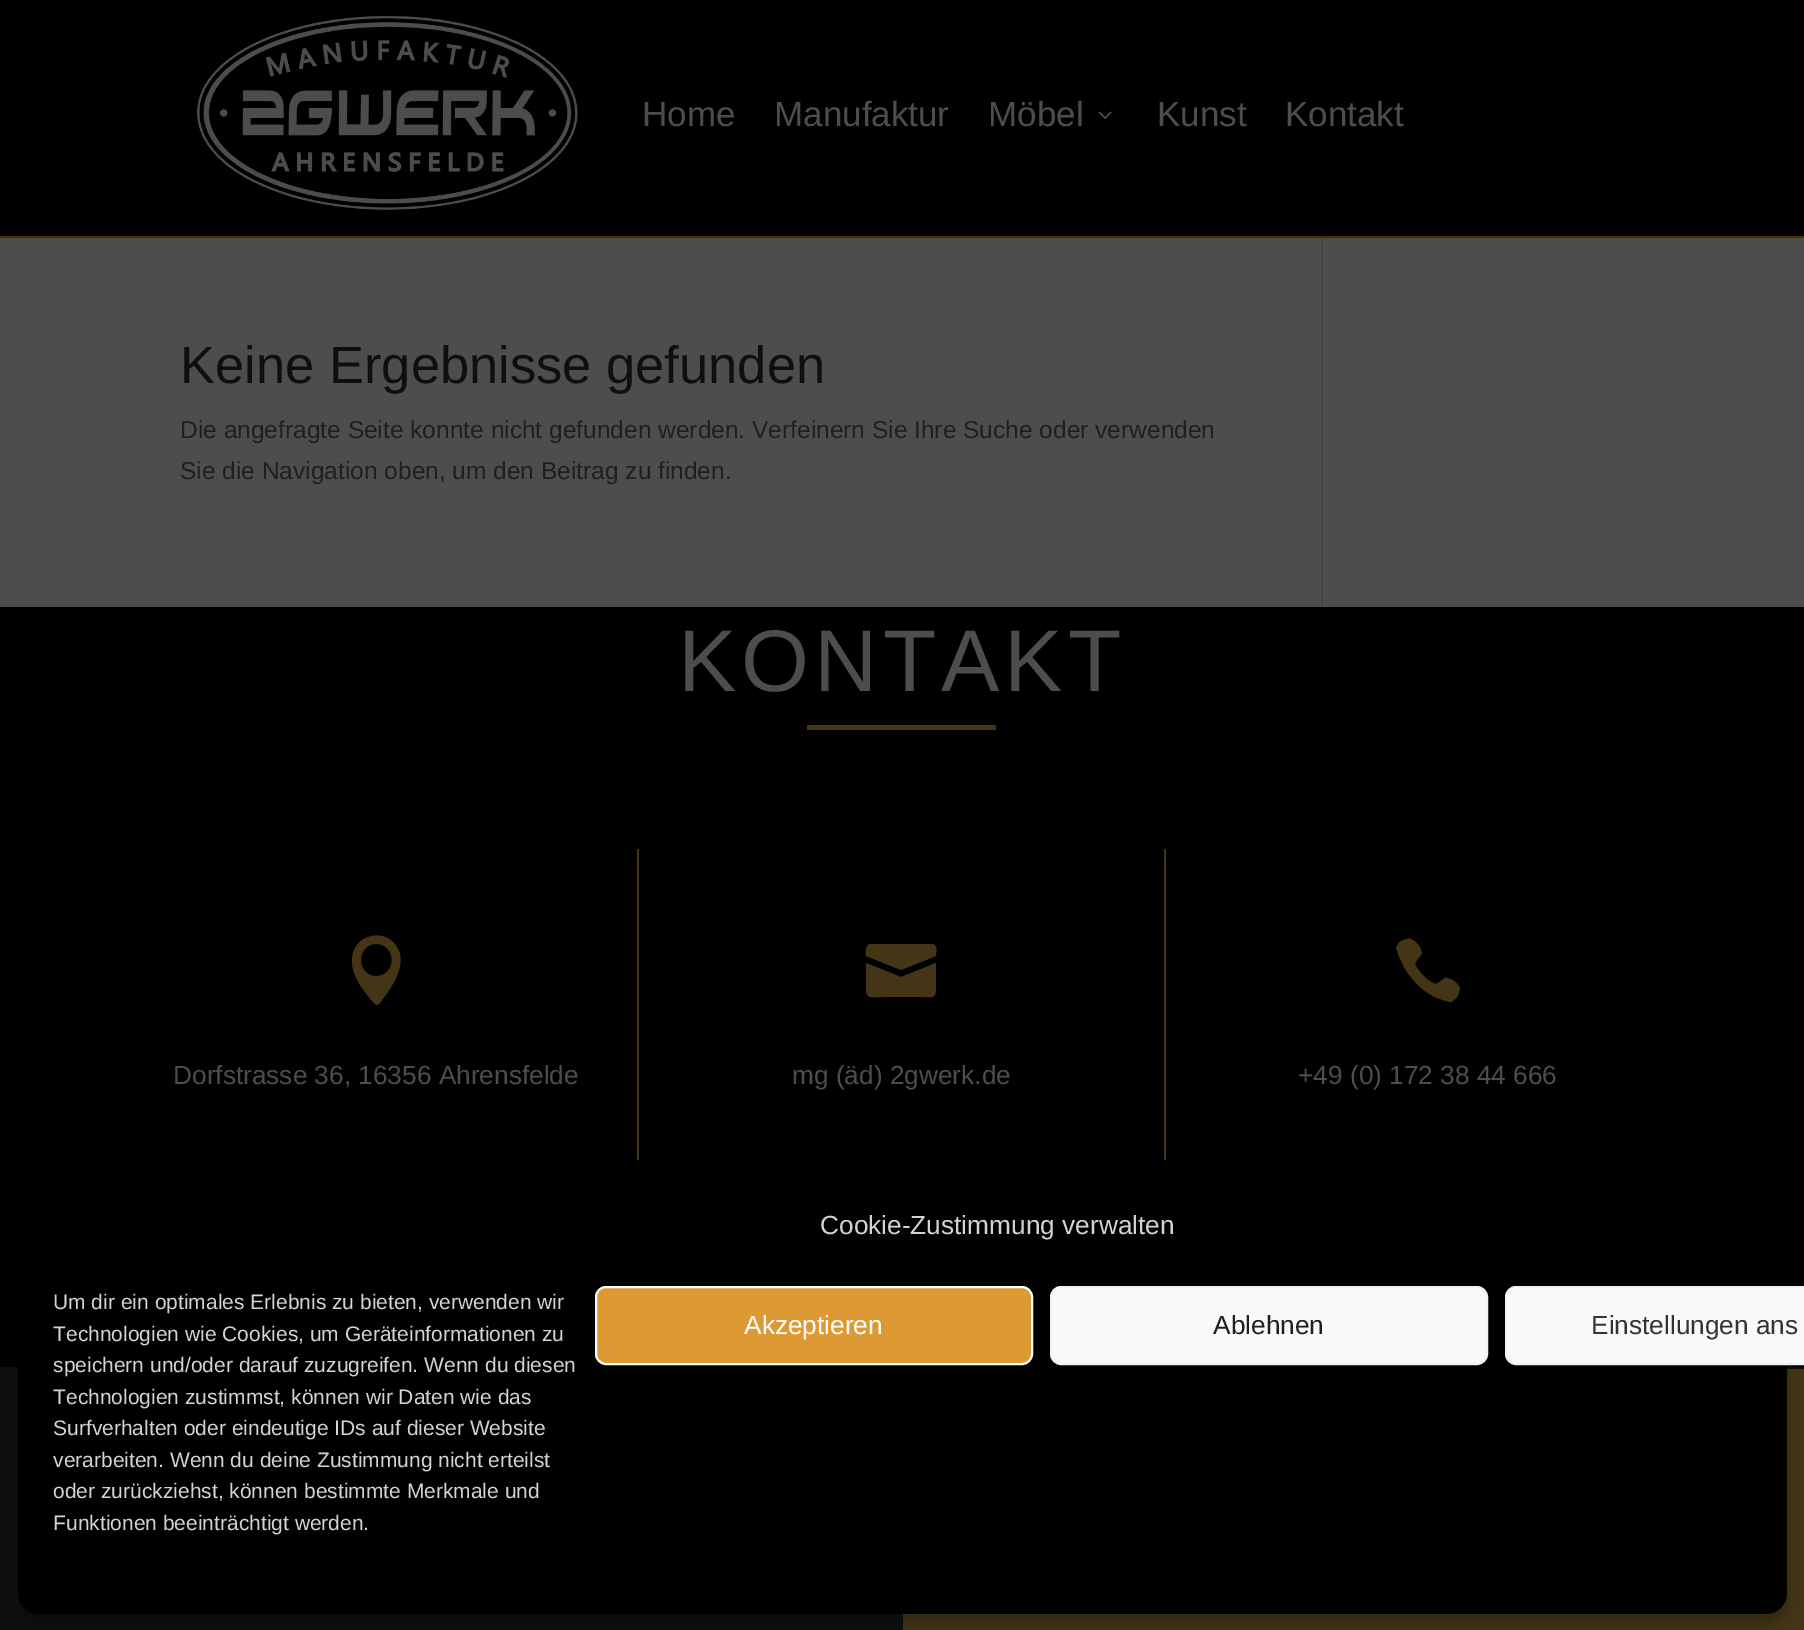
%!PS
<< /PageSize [1804 1630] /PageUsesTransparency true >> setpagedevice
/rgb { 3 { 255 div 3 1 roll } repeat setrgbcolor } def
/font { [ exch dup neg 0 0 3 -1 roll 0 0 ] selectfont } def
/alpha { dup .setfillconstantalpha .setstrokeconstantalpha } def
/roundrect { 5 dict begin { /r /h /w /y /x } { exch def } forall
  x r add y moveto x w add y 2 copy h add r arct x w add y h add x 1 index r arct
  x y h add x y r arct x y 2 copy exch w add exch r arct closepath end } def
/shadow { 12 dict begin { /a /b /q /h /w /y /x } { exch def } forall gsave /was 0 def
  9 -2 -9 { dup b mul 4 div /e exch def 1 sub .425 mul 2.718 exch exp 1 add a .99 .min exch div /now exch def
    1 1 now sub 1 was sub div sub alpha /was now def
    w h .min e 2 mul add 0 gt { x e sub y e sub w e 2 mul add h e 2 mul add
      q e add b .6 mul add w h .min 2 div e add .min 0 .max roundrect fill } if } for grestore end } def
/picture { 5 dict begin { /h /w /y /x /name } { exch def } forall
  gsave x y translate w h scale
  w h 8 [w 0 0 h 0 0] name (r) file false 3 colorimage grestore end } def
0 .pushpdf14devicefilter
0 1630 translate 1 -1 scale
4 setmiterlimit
0 0 0 rgb
0 0 1804 1630 rectfill
67 46 0 rgb
0 236 1804 2 rectfill
(img/1.rgb) 196 16 382 194 picture
(img/2.rgb) 1098 111 14 8 picture
[
  [0 238 1804 369 77 77 77]
  [1321 238 2 369 68 68 68]
  [807 725 189 5 67 53 21]
  [637 849 2 311 67 53 21]
] { aload pop rgb rectfill } forall
375 1004 moveto 377 1005 lineto 379 1005 384 997 385 996 curveto 395 982 409 960 394 943 curveto 379 927 351 938 352 961 curveto 352 977 364 992 375 1004 curveto closepath 376 944 moveto 397 944 397 976 376 976 curveto 356 976 356 944 376 944 curveto closepath fill
1164 849 2 311 rectfill
932 944 moveto 871 944 lineto 865 944 866 952 866 956 curveto 901 970 lineto 936 956 lineto 936 952 938 944 932 944 curveto closepath 866 963 moveto 866 987 lineto 866 999 869 997 881 997 curveto 922 997 lineto 934 997 936 999 936 987 curveto 936 963 lineto 901 977 lineto closepath fill
(img/3.rgb) 1395 938 66 65 picture
13 14 15 rgb
0 1367 1804 263 rectfill
67 53 21 rgb
903 1369 901 261 rectfill
0 0 0 rgb
18 1188 1769 436 21 5 0.23 shadow
18 1178 1769 436 21 roundrect fill
221 153 51 rgb
596 1287 436 77 10 roundrect gsave fill grestore
255 255 255 rgb
2 setlinewidth
stroke
249 249 249 rgb
1051 1287 436 77 10 roundrect gsave fill grestore
242 242 242 rgb
stroke
249 249 249 rgb
1506 1287 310 77 10 roundrect gsave fill grestore
242 242 242 rgb
stroke
/LiberationSans-Regular 35 font
77 77 77 rgb
[
  [(Home) 642 126]
  [(Manufaktur) 774 126]
  [(Möbel) 988 126]
  [(Kunst) 1157 126]
  [(Kontakt) 1285 126]
] { aload pop moveto show } forall
/LiberationSans-Regular 52.5 font
15 15 15 rgb
180 383 moveto (Keine Ergebnisse gefunden) show
/LiberationSans-Regular 24.5 font
31 31 31 rgb
180 438 moveto (Die angefragte Seite konnte nicht gefunden werden. Verfeinern Sie Ihre Suche oder verwenden) show
180 479 moveto (Sie die Navigation oben, um den Beitrag zu finden.) show
/LiberationSans-Regular 87.5 font
77 77 77 rgb
678 691 moveto 5 0 (KONTAKT) ashow
/LiberationSans-Regular 26.25 font
[
  [(Dorfstrasse 36, 16356 Ahrensfelde) 173 1084]
  [(mg \(äd\) 2gwerk.de) 792 1084]
  [(+49 \(0\) 172 38 44 666) 1298 1084]
] { aload pop moveto show } forall
211 211 211 rgb
820 1234 moveto (Cookie-Zustimmung verwalten) show
/LiberationSans-Regular 21 font
[
  [(Um dir ein optimales Erlebnis zu bieten, verwenden wir) 53 1309]
  [(Technologien wie Cookies, um Geräteinformationen zu) 53 1341]
  [(speichern und/oder darauf zuzugreifen. Wenn du diesen) 53 1372]
  [(Technologien zustimmst, können wir Daten wie das) 53 1404]
  [(Surfverhalten oder eindeutige IDs auf dieser Website) 53 1435]
  [(verarbeiten. Wenn du deine Zustimmung nicht erteilst) 53 1467]
  [(oder zurückziehst, können bestimmte Merkmale und) 53 1498]
  [(Funktionen beeinträchtigt werden.) 53 1530]
] { aload pop moveto show } forall
/LiberationSans-Regular 26.25 font
255 255 255 rgb
744 1334 moveto (Akzeptieren) show
31 31 31 rgb
1213 1334 moveto (Ablehnen) show
51 51 51 rgb
1591 1334 moveto (Einstellungen ans) show
.poppdf14devicefilter showpage
